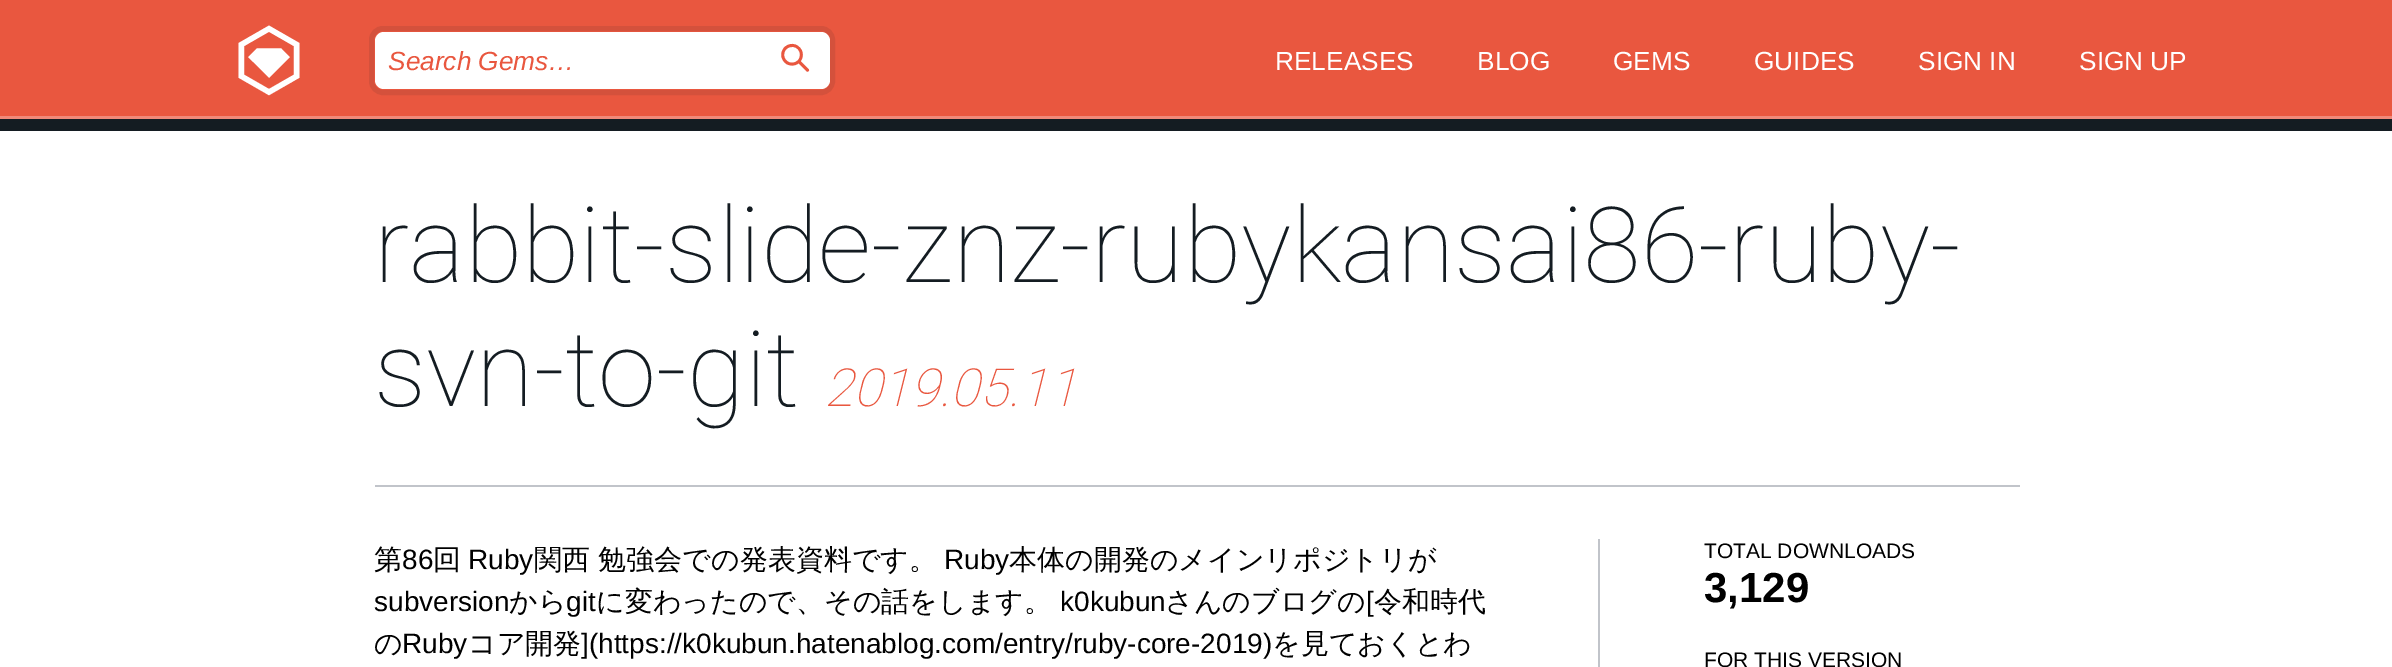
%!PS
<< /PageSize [2392 667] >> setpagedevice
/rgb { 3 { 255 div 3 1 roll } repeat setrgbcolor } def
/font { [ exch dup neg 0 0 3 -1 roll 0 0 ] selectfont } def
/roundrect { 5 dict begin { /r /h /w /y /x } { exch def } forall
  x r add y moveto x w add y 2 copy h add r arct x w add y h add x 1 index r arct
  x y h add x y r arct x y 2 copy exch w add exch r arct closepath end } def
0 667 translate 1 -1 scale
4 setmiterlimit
233 87 63 rgb
0 0 2392 667 rectfill
240 137 121 rgb
0 116 2392 3 rectfill
20 28 34 rgb
0 119 2392 12 rectfill
212 81 60 rgb
5 setlinewidth
371.5 28.5 461 64 11.5 roundrect stroke
255 255 255 rgb
375 32 455 57 9 roundrect fill
[
  [0 131 2392 536 255 255 255]
  [375 485 1645 2 193 196 202]
  [1598 539 2 128 193 196 202]
] { aload pop rgb rectfill } forall
/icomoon-Regular 70 font
255 255 255 rgb
234 91 moveto (⬢) show
234 91 moveto (⬡) show
/LiberationSans-Italic 26.25 font
233 87 63 rgb
388 70 moveto (Search Gems…) show
/icomoon-Regular 28 font
781 70 moveto (⌕) show
/LiberationSans-Regular 26.25 font
255 255 255 rgb
[
  [(RELEASES) 1275 70]
  [(BLOG) 1477 70]
  [(GEMS) 1613 70]
  [(GUIDES) 1754 70]
  [(SIGN IN) 1918 70]
  [(SIGN UP) 2079 70]
] { aload pop moveto show } forall
/Roboto-Thin 105 font
20 28 34 rgb
374 282 moveto (rabbit-slide-znz-rubykansai86-ruby-) show
374 406 moveto (svn-to-git) show
/Roboto-ThinItalic 52.5 font
233 87 63 rgb
824 406 moveto (2019.05.11) show
/WenQuanYiZenHei-Medium 28 font
0 0 0 rgb
374 569 moveto (第) show
/LiberationSans-Regular 28 font
402 569 moveto (86) show
/WenQuanYiZenHei-Medium 28 font
433 569 moveto (回) show
/LiberationSans-Regular 28 font
468 569 moveto (Ruby) show
/WenQuanYiZenHei-Medium 28 font
534 569 moveto (関西 勉強会での発表資料です。) show
/LiberationSans-Regular 28 font
944 569 moveto (Ruby) show
/WenQuanYiZenHei-Medium 28 font
1009 569 moveto (本体の開発のメインリポジトリが) show
/LiberationSans-Regular 28 font
374 611 moveto (subversion) show
/WenQuanYiZenHei-Medium 28 font
509 611 moveto (から) show
/LiberationSans-Regular 28 font
566 611 moveto (git) show
/WenQuanYiZenHei-Medium 28 font
596 611 moveto (に変わったので、その話をします。) show
/LiberationSans-Regular 28 font
1060 611 moveto (k0kubun) show
/WenQuanYiZenHei-Medium 28 font
1165 611 moveto (さんのブログの) show
/LiberationSans-Regular 28 font
1366 611 moveto ([) show
/WenQuanYiZenHei-Medium 28 font
1374 611 moveto (令和時代) show
gsave
375 539 1645 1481 rectclip
374 653 moveto (の) show
grestore
/LiberationSans-Regular 28 font
402 653 moveto (Ruby) show
/WenQuanYiZenHei-Medium 28 font
468 653 moveto (コア開発) show
/LiberationSans-Regular 28 font
581 653 moveto (]\(https://k0kubun.hatenablog.com/entry/ruby-core-2019\)) show
/WenQuanYiZenHei-Medium 28 font
1272 653 moveto (を見ておくとわ) show
/LiberationSans-Regular 21 font
1704 558 moveto (TOTAL DOWNLOADS) show
/LiberationSans-Bold 42 font
1704 602 moveto (3,129) show
/LiberationSans-Regular 21 font
1704 667 moveto (FOR THIS VERSION) show
showpage
